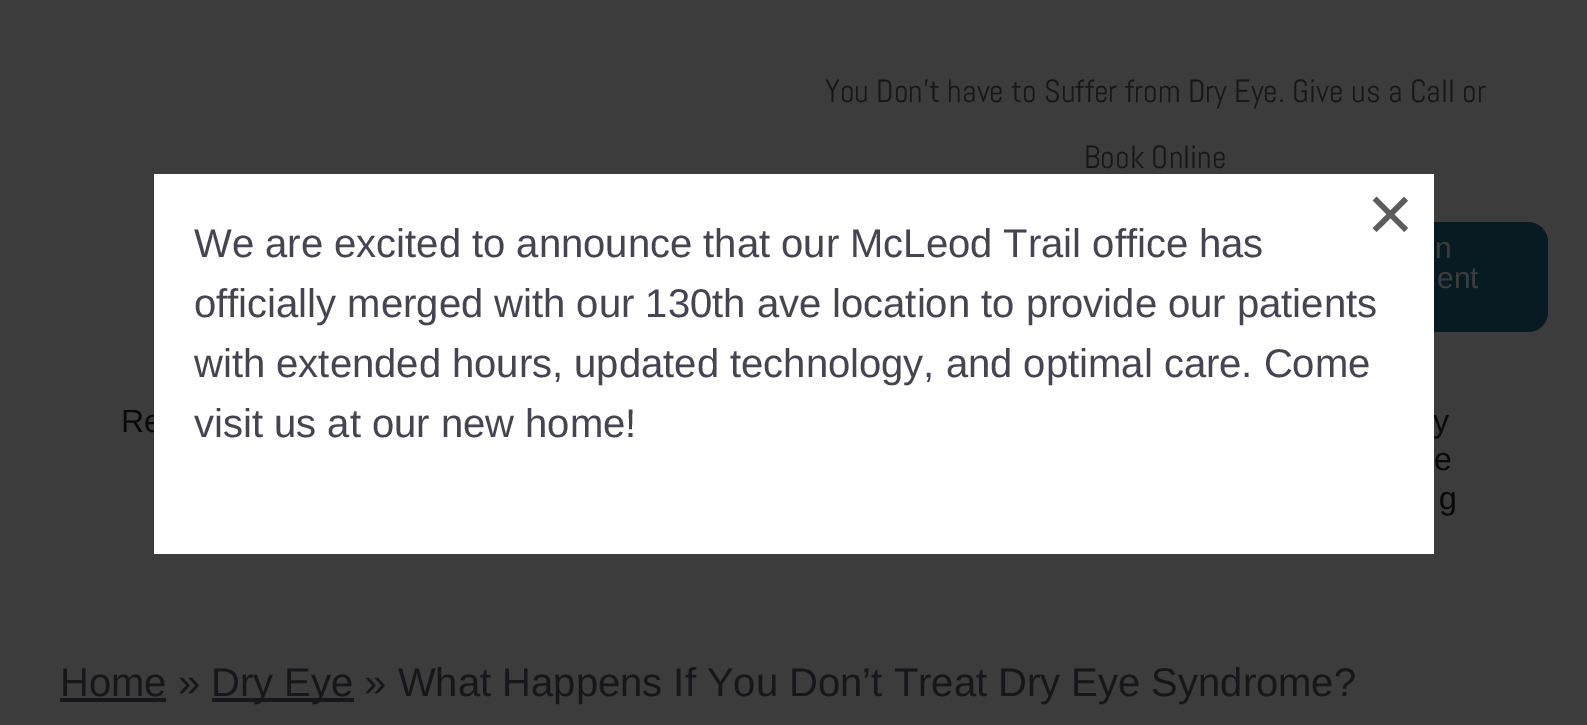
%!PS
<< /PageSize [1587 725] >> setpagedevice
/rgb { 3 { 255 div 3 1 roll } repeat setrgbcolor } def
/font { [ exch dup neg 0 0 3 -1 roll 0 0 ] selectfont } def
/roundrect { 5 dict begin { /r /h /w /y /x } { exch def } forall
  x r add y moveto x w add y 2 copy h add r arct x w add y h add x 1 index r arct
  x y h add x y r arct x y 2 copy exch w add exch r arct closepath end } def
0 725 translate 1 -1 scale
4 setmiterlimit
60 60 60 rgb
0 0 1587 725 rectfill
9 27 34 rgb
1176 222 372 110 20 roundrect fill
23 22 25 rgb
60 698 106 4 rectfill
212 698 142 4 rectfill
/Abel-Regular 32 font
825 102 moveto (You Don’t have to Suffer from Dry Eye. Give us a Call or) show
1084 168 moveto (Book Online) show
/LiberationSans-Regular 30 font
60 60 60 rgb
1435 258 moveto (n) show
1437 288 moveto (ent) show
/LiberationSans-Regular 32 font
9 9 9 rgb
[
  [(Re) 121 432]
  [(y) 1433 432]
  [(e) 1434 470]
  [(g) 1439 509]
] { aload pop moveto show } forall
/LiberationSans-Regular 40 font
23 22 25 rgb
60 696 moveto (Home ») show
211 696 moveto (Dry Eye » What Happens If You Don’t Treat Dry Eye Syndrome?) show
255 255 255 rgb
154 174 1280 380 rectfill
/LiberationSans-Regular 80 font
92 92 92 rgb
1367 241 moveto (×) show
/LiberationSans-Regular 40 font
70 68 81 rgb
[
  [(We are excited to announce that our McLeod Trail office has) 194 257]
  [(officially merged with our 130th ave location to provide our patients) 194 317]
  [(with extended hours, updated technology, and optimal care. Come) 194 377]
  [(visit us at our new home!) 194 437]
] { aload pop moveto show } forall
showpage
